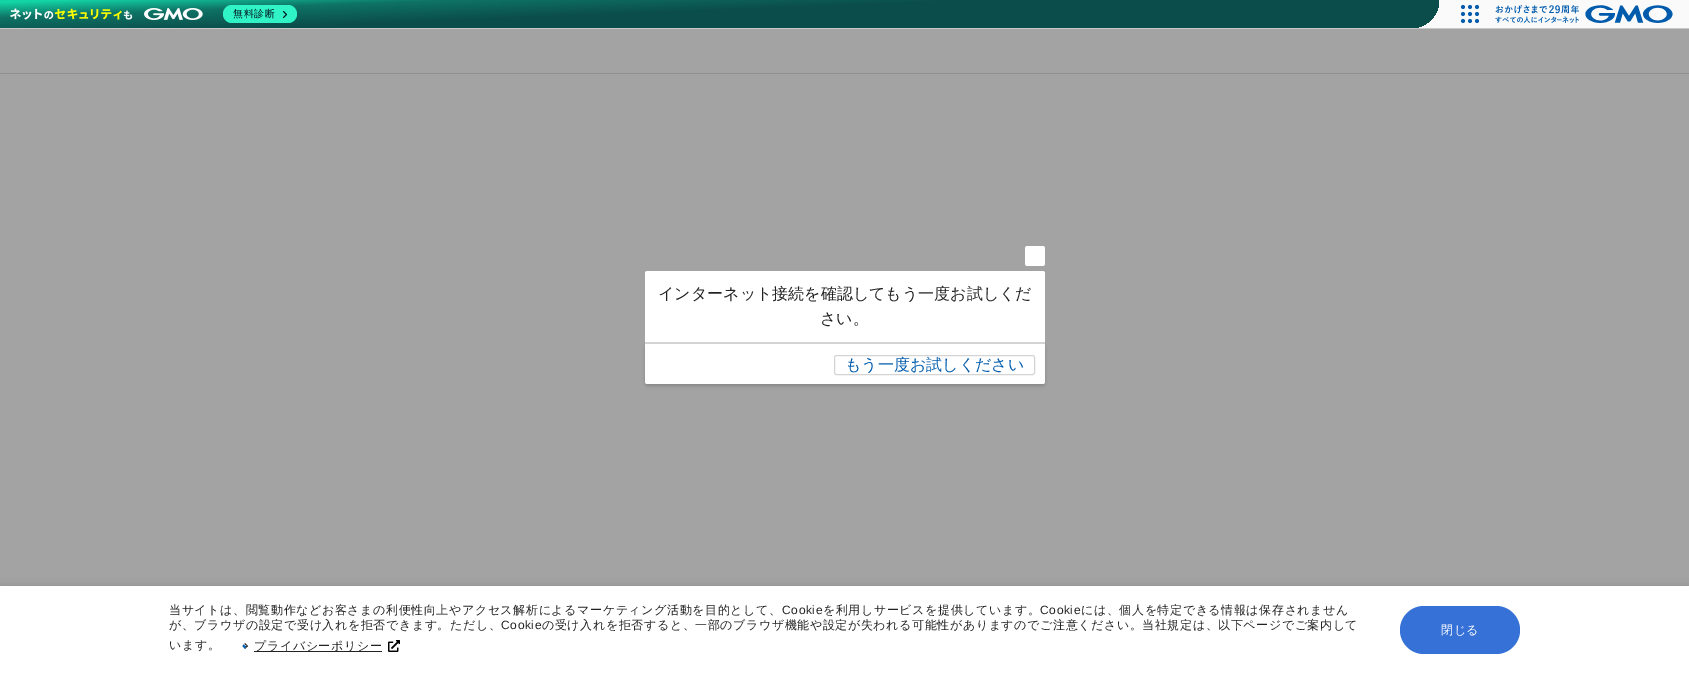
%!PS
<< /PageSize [1689 675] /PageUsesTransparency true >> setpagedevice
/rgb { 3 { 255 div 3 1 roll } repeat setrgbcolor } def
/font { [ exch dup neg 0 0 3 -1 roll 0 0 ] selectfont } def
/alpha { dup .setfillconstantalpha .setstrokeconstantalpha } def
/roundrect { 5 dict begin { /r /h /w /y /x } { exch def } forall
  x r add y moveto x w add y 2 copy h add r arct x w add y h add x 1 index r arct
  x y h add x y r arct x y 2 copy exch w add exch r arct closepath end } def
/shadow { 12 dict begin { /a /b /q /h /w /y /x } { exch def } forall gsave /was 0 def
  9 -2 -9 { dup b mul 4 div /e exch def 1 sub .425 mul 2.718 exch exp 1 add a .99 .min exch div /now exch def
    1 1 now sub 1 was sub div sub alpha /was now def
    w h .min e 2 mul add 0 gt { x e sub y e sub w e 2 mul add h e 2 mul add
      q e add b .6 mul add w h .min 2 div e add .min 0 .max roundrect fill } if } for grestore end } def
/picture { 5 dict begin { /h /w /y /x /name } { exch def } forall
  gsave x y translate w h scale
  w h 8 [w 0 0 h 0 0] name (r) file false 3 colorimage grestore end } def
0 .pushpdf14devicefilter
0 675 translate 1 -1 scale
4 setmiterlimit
163 163 163 rgb
0 0 1689 675 rectfill
250 250 250 rgb
1411 0 278 28 rectfill
200 200 200 rgb
0 28 1689 1 rectfill
gsave 0 0 moveto 1439 0 lineto 1439 15.5 1426.5 28 1411 28 curveto 0 28 lineto closepath clip newpath
<< /ShadingType 2 /ColorSpace /DeviceRGB /Coords [718 -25 721 53] /Extend [true true] /Function << /FunctionType 3 /Domain [0 1] /Functions [<< /FunctionType 2 /Domain [0 1] /C0 [0.075 0.831 0.647] /C1 [0.055 0.451 0.396] /N 1 >> << /FunctionType 2 /Domain [0 1] /C0 [0.055 0.451 0.396] /C1 [0.043 0.302 0.294] /N 1 >> << /FunctionType 2 /Domain [0 1] /C0 [0.043 0.302 0.294] /C1 [0.043 0.302 0.294] /N 1 >>] /Bounds [0.19 0.45] /Encode [0 1 0 1 0 1] >> >> shfill grestore
(img/1.rgb) 10 8 193 12 picture
48 244 197 rgb
223 5 74 18 9 roundrect fill
2 23 37 rgb
0.9 setlinewidth
1 setlinecap
1 setlinejoin
283.5 11.5 moveto 286.5 14.5 lineto 283.5 17.5 lineto stroke
(img/2.rgb) 1460 4 20 20 picture
(img/3.rgb) 1495 5 178 18 picture
143 143 143 rgb
0 73 1689 1 rectfill
255 255 255 rgb
1025 246 20 20 2.5 roundrect fill
0 0 0 rgb
645 344 400 42 2.5 1.5 0.16 shadow
255 255 255 rgb
647.5 271 moveto 1042.5 271 lineto 1044 271 1045 272 1045 273.5 curveto 1045 342 lineto 645 342 lineto 645 273.5 lineto 645 272 646 271 647.5 271 curveto closepath fill
645 342 moveto 1045 342 lineto 1045 381.5 lineto 1045 383 1044 384 1042.5 384 curveto 647.5 384 lineto 646 384 645 383 645 381.5 curveto closepath fill
212 212 212 rgb
645 342 400 2 rectfill
1 setlinewidth
0 setlinecap
0 setlinejoin
834.5 355.5 200 19 2 roundrect stroke
0 0 0 rgb
0 586 1689 89 0 4 0.1 shadow
255 255 255 rgb
0 586 1689 89 rectfill
34 34 34 rgb
245 643 moveto 248 646 lineto 247.5 646.5 lineto 244.5 644 lineto closepath fill
248 646 moveto 245 649 lineto 246 646.5 lineto 246.5 646 lineto closepath fill
0 91 172 rgb
245 649 moveto 242.5 646 lineto 243.5 644.5 lineto 246 646.5 lineto closepath fill
34 34 34 rgb
254 651 128 1 rectfill
(img/4.rgb) 388 640 12 12 picture
54 113 215 rgb
1400 606 120 48 24 roundrect fill
/WenQuanYiZenHei-Medium 10 font
2 23 37 rgb
233 17 moveto 0.5 0 (無料診断) ashow
/WenQuanYiZenHei-Medium 16 font
34 34 34 rgb
658 299 moveto (インターネット接続を確認してもう一度お試しくだ) show
820 324 moveto (さい。) show
0 91 172 rgb
845 370 moveto (もう一度お試しください) show
/WenQuanYiZenHei-Medium 12 font
34 34 34 rgb
169 614 moveto 0.6 0 (当サイトは、閲覧動作などお客さまの利便性向上やアクセス解析によるマーケティング活動を目的として、) ashow
/LiberationSans-Regular 12 font
782 614 moveto 0.6 0 (Cookie) ashow
/WenQuanYiZenHei-Medium 12 font
823 614 moveto 0.6 0 (を利用しサービスを提供しています。) ashow
/LiberationSans-Regular 12 font
1040 614 moveto 0.6 0 (Cookie) ashow
/WenQuanYiZenHei-Medium 12 font
1081 614 moveto 0.6 0 (には、個人を特定できる情報は保存されません) ashow
169 629 moveto 0.6 0 (が、ブラウザの設定で受け入れを拒否できます。ただし、) ashow
/LiberationSans-Regular 12 font
501 629 moveto 0.6 0 (Cookie) ashow
/WenQuanYiZenHei-Medium 12 font
542 629 moveto 0.6 0 (の受け入れを拒否すると、一部のブラウザ機能や設定が失われる可能性がありますのでご注意ください。当社規定は、以下ページでご案内して) ashow
169 649 moveto 0.6 0 (います。) ashow
254 650 moveto 0.6 0 (プライバシーポリシー) ashow
255 255 255 rgb
1441 634 moveto 0.6 0 (閉じる) ashow
.poppdf14devicefilter showpage
